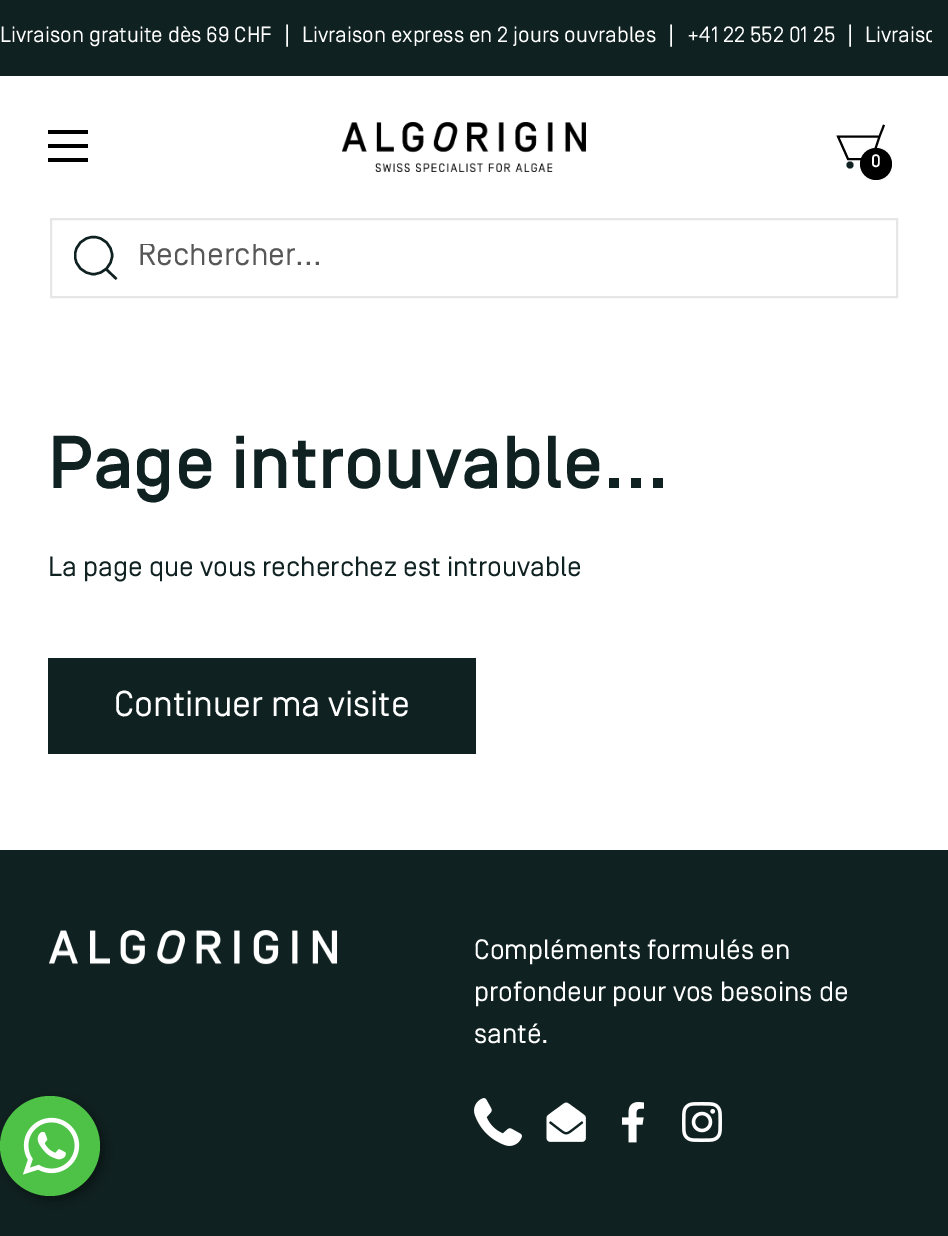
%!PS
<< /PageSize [948 1236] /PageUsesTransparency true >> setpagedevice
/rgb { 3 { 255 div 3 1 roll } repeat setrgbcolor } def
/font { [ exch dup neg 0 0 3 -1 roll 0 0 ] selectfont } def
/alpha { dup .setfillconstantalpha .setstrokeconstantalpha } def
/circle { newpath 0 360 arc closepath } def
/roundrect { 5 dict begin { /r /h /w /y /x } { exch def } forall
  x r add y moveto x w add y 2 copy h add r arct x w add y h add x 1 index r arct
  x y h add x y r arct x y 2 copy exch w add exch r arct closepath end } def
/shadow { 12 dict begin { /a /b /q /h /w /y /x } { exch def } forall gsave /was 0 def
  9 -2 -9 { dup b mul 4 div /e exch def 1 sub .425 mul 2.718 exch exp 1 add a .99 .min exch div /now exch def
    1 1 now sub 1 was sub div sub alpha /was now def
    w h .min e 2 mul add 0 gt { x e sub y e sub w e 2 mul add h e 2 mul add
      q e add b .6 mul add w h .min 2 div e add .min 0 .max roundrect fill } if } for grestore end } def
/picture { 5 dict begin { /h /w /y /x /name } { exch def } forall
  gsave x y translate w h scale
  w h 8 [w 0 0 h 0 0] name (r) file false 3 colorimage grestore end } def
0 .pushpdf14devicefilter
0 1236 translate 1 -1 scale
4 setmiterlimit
255 255 255 rgb
0 0 948 1236 rectfill
[
  [0 0 948 76 16 33 33]
  [48 130 40 4 0 0 0]
  [48 144 40 4 0 0 0]
  [48 158 40 4 0 0 0]
] { aload pop rgb rectfill } forall
(img/1.rgb) 342 122 244 50 picture
2 setlinewidth
879.5 136.5 moveto 872 159 lineto 848 159 lineto 838 136.5 lineto closepath 879.5 136.5 moveto 884 125 lineto stroke
16 33 33 rgb
850 165 3.5 circle fill
0 0 0 rgb
876 164 16 circle fill
230 230 230 rgb
51 219 846 78 rectstroke
gsave
74 218 44 80 rectclip
16 33 33 rgb
2.4 setlinewidth
93.5 255.5 18.5 circle stroke
grestore
16 33 33 rgb
2.4 setlinewidth
106.5 269.5 moveto 116.5 279 lineto stroke
48 658 428 96 rectfill
0 850 948 386 rectfill
(img/2.rgb) 49 930 289 35 picture
(img/3.rgb) 474 1098 48 48 picture
(img/4.rgb) 546 1102 40 40 picture
(img/5.rgb) 622 1102 22 41 picture
(img/6.rgb) 682 1102 40 40 picture
0 0 0 rgb
4 1100 100 100 50 6 0.4 shadow
77 194 71 rgb
50 1146 50 circle fill
(img/7.rgb) 22 1117 58 58 picture
/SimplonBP-Regular 22 font
255 255 255 rgb
0 42 moveto (Livraison gratuite dès 69 CHF) show
/SimplonBP-Regular 28 font
284 44 moveto (|) show
/SimplonBP-Regular 22 font
302 42 moveto (Livraison express en 2 jours ouvrables) show
/SimplonBP-Regular 28 font
668 44 moveto (|) show
/SimplonBP-Regular 22 font
687 42 moveto (+41 22 552 01 25) show
/SimplonBP-Regular 28 font
847 44 moveto (|) show
gsave
0 16 932 42 rectclip
/SimplonBP-Regular 22 font
865 42 moveto (Livraiso) show
grestore
/SimplonBP-Medium 18 font
871 167 moveto (0) show
gsave
138 244 702 30 rectclip
/SimplonBP-Regular 32 font
87 87 87 rgb
138 265 moveto (Rechercher...) show
grestore
/SimplonBP-Medium 74.75 font
16 33 33 rgb
48 488 moveto (Page introuvable...) show
/SimplonBP-Regular 28 font
48 576 moveto (La page que vous recherchez est introuvable) show
/SimplonBP-Regular 36 font
255 255 255 rgb
114 716 moveto (Continuer ma visite) show
/SimplonBP-Regular 28 font
[
  [(Compléments formulés en) 474 959]
  [(profondeur pour vos besoins de) 474 1001]
  [(santé.) 474 1043]
] { aload pop moveto show } forall
.poppdf14devicefilter showpage
